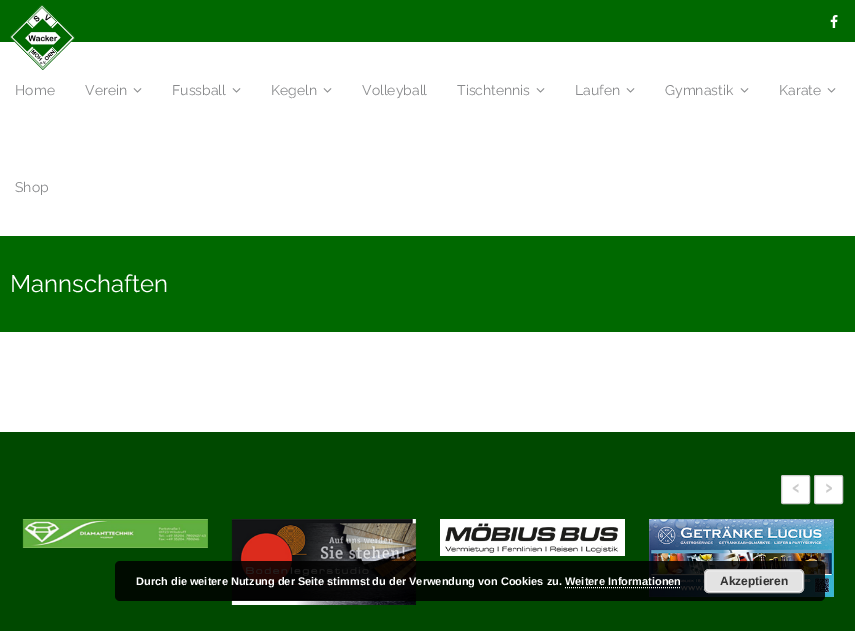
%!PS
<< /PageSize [855 631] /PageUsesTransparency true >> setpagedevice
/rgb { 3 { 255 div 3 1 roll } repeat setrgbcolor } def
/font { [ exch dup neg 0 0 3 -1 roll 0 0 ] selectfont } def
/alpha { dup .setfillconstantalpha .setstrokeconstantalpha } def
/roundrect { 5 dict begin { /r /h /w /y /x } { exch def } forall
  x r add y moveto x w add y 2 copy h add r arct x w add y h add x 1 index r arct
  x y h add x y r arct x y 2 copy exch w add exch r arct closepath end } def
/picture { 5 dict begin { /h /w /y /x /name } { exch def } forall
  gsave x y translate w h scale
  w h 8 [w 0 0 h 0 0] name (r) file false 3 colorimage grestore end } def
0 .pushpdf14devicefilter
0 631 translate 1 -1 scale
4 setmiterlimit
255 255 255 rgb
0 0 855 631 rectfill
0 105 0 rgb
0 0 855 42 rectfill
(img/1.rgb) 830 15 8 13 picture
(img/2.rgb) 10 5 65 65 picture
(img/3.rgb) 133 88 9 5 picture
(img/3.rgb) 232 88 9 5 picture
(img/3.rgb) 323 88 9 5 picture
(img/3.rgb) 536 88 9 5 picture
(img/3.rgb) 626 88 9 5 picture
(img/3.rgb) 740 88 9 5 picture
(img/3.rgb) 827 88 9 5 picture
0 236 855 96 rectfill
0 73 0 rgb
0 432 855 199 rectfill
255 255 255 rgb
781.5 475.5 28 28 1.5 roundrect gsave fill grestore
204 204 204 rgb
stroke
255 255 255 rgb
814.5 475.5 28 28 1.5 roundrect gsave fill grestore
204 204 204 rgb
stroke
(img/4.rgb) 22 519 186 29 picture
(img/5.rgb) 231 519 186 86 picture
(img/6.rgb) 440 519 185 37 picture
(img/7.rgb) 649 519 185 78 picture
0.85 alpha
0 0 0 rgb
115 561 710 40 5 roundrect fill
1 alpha
227 227 227 rgb
704 569 100 24 5 roundrect fill
246 246 246 rgb
705.5 570.5 97 21 3.5 roundrect stroke
187 187 187 rgb
704.5 569.5 99 23 4.5 roundrect stroke
255 255 255 rgb
[1 1] 0 setdash
565 587.5 moveto 681 587.5 lineto stroke
/Raleway-Regular 14 font
137 138 140 rgb
[
  [(Home) 15 95]
  [(Verein) 85 95]
  [(Fussball) 172 95]
  [(Kegeln) 271 95]
  [(Volleyball) 362 95]
  [(Tischtennis) 457 95]
  [(Laufen) 575 95]
  [(Gymnastik) 665 95]
  [(Karate) 779 95]
  [(Shop) 15 192]
] { aload pop moveto show } forall
/Raleway-Regular 24 font
255 255 255 rgb
10 292 moveto (Mannschaften) show
/Raleway-Bold 22 font
204 204 204 rgb
792 494 moveto (‹) show
825 494 moveto (›) show
/LiberationSans-Bold 11 font
255 255 255 rgb
136 585 moveto (Durch die weitere Nutzung der Seite stimmst du der Verwendung von Cookies zu. Weitere Informationen) show
/LiberationSans-Bold 12 font
51 51 51 rgb
720 585 moveto (Akzeptieren) show
.poppdf14devicefilter showpage
